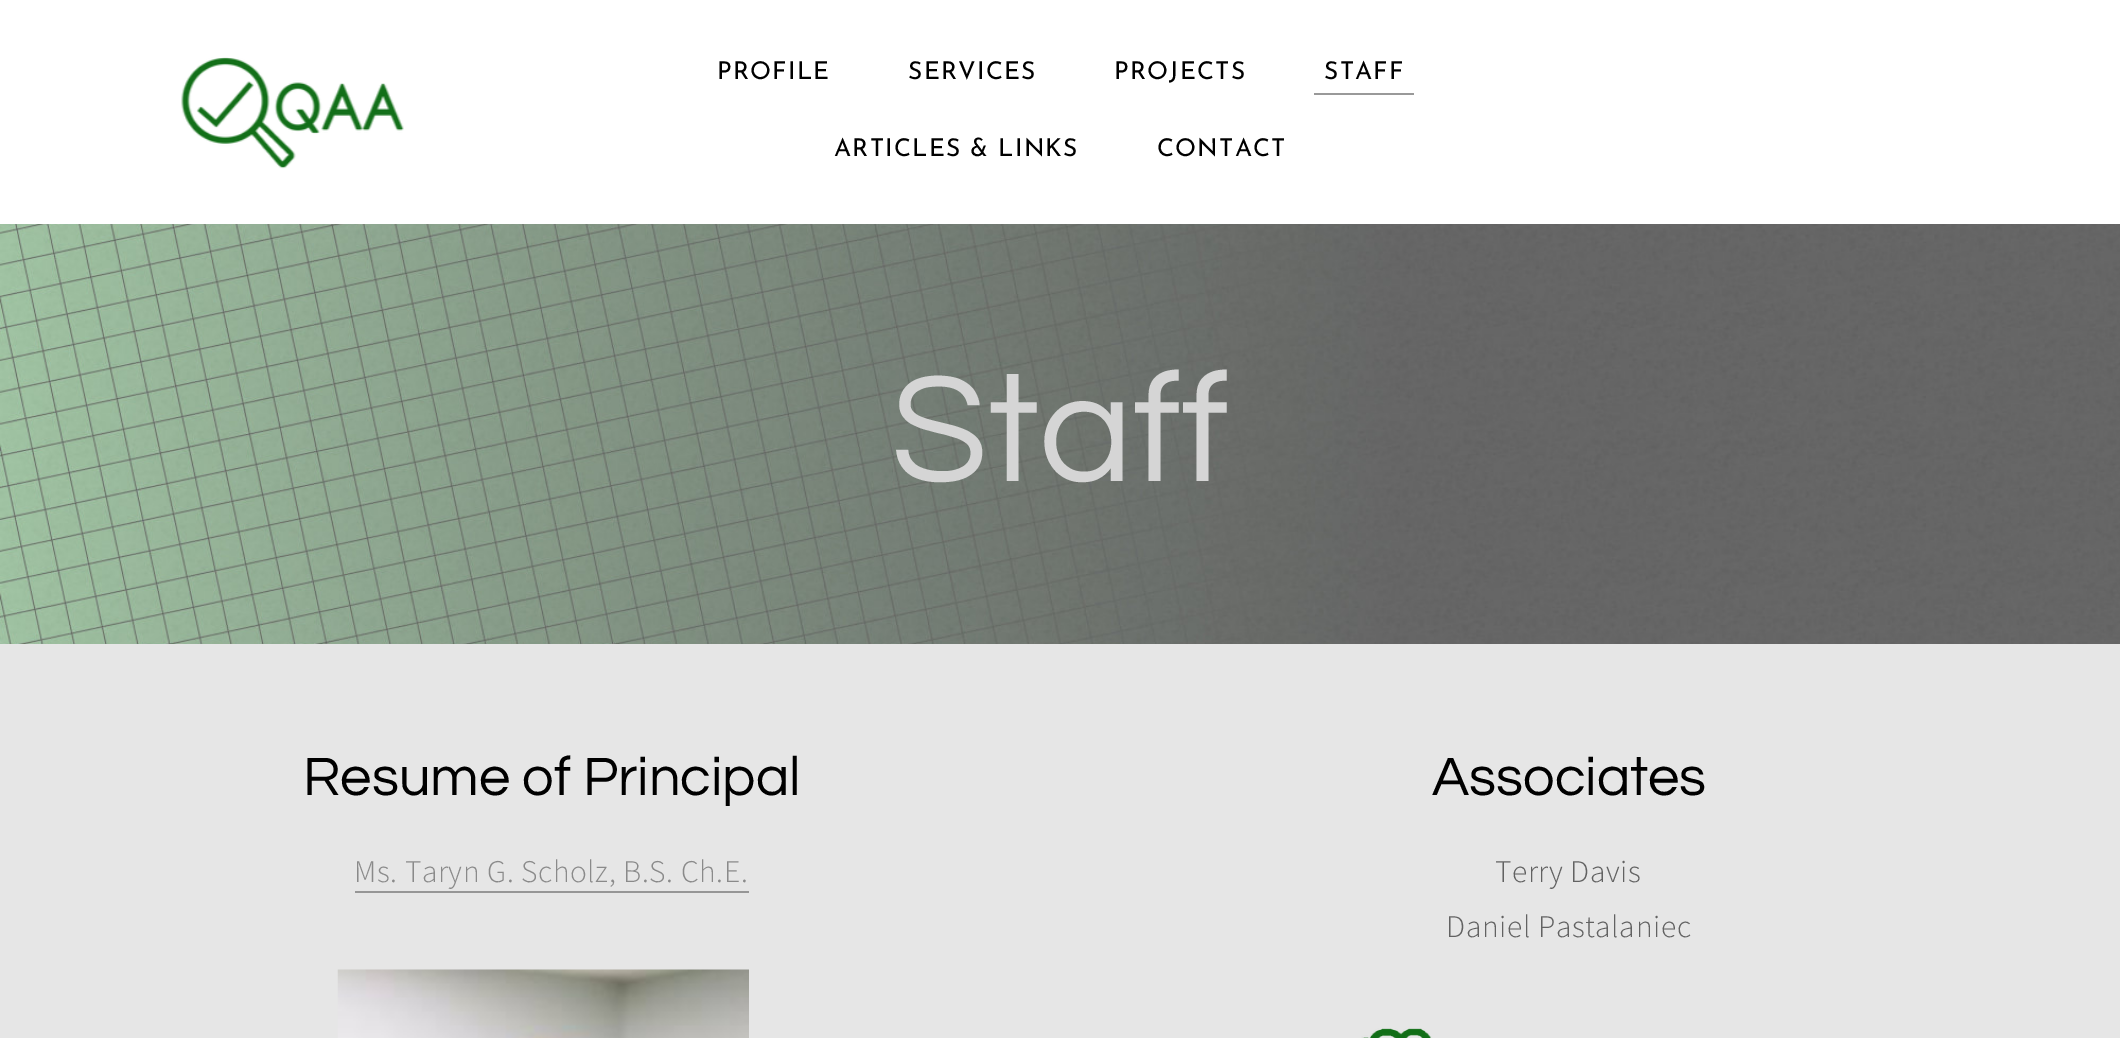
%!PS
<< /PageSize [2120 1038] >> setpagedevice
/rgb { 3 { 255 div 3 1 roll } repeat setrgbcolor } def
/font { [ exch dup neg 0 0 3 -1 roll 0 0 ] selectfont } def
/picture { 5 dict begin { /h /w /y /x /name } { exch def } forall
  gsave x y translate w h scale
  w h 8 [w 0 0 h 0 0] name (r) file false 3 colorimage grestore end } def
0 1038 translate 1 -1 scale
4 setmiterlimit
255 255 255 rgb
0 0 2120 1038 rectfill
(img/1.rgb) 181 57 223 112 picture
153 153 153 rgb
1314 93 100 2 rectfill
(img/2.rgb) 0 224 2120 420 picture
230 230 230 rgb
0 644 2120 394 rectfill
150 150 150 rgb
355 891 394 2 rectfill
(img/3.rgb) 337 969 412 69 picture
(img/4.rgb) 1361 1028 71 10 picture
/JosefinSans-Thin 24.5 font
0 0 0 rgb
717 79 moveto 1.25 0 (PROFILE) ashow
908 79 moveto 1.25 0 (SERVICES) ashow
1114 79 moveto 1.25 0 (PROJECTS) ashow
1324 79 moveto 1.25 0 (STAFF) ashow
834 156 moveto 1.25 0 (ARTICLES & LINKS) ashow
1157 156 moveto 1.25 0 (CONTACT) ashow
/Questrial-Regular 157.5 font
213 213 213 rgb
891 481 moveto (Staff) show
/Questrial-Regular 56 font
0 0 0 rgb
303 795 moveto (Resume of Principal) show
/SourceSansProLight-Light 31.5 font
138 138 138 rgb
354 882 moveto 0.6 0 (Ms. Taryn G. Scholz, B.S. Ch.E.) ashow
/Questrial-Regular 56 font
0 0 0 rgb
1432 795 moveto (Associates) show
/SourceSansProLight-Light 31.5 font
98 98 98 rgb
1495 882 moveto 0.6 0 (Terry Davis) ashow
1446 937 moveto 0.6 0 (Daniel Pastalaniec) ashow
showpage
